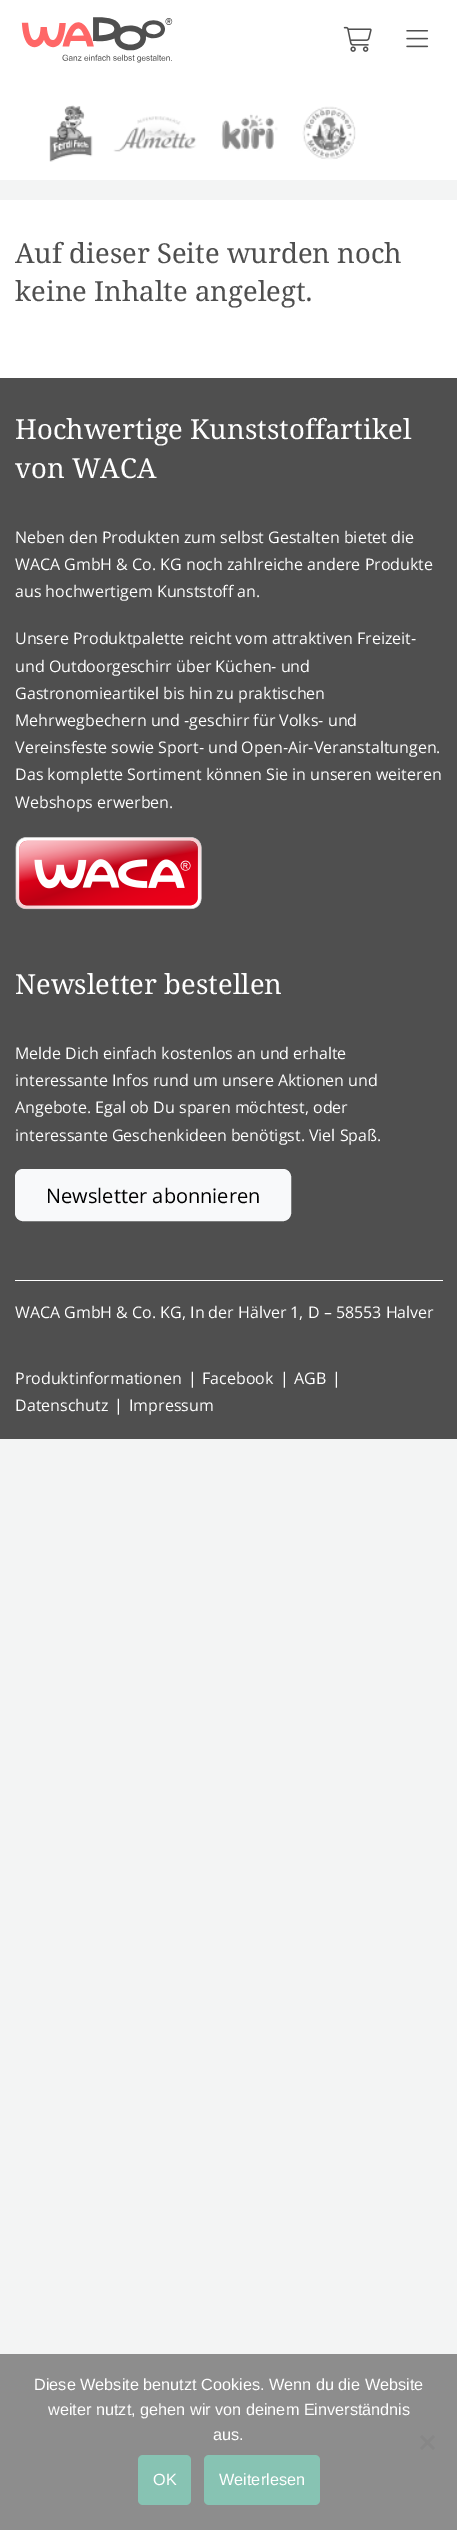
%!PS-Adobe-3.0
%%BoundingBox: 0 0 457 2530
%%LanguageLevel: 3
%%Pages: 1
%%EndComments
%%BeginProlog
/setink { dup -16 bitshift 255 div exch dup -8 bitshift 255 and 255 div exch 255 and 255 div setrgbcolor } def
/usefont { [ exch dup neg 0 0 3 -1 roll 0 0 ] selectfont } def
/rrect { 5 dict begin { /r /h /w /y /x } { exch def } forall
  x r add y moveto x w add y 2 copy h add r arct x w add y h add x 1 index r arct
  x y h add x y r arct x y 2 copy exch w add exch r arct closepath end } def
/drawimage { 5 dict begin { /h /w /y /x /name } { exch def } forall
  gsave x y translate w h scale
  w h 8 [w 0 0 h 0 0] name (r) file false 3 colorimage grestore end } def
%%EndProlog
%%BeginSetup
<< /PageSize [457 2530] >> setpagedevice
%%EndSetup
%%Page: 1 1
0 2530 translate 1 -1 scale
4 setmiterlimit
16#F3F4F4 setink
0 0 457 2530 rectfill
16#FFFFFF setink
0 0 457 180 rectfill
(img1.raw) 21 17 152 46 drawimage
(img2.raw) 343 26 29 26 drawimage
(img3.raw) 406 30 23 18 drawimage
(img4.raw) 49 105 307 57 drawimage
0 200 457 178 rectfill
/DroidSerif-Regular 27.5 usefont
16#4F4F4F setink
15 263 moveto (Auf dieser Seite wurden noch) show
15 301 moveto (keine Inhalte angelegt.) show
0 378 457 1061 rectfill
16#FFFFFF setink
15 439 moveto (Hochwertige Kunststoffartikel) show
15 478 moveto (von WACA) show
/OpenSans-Regular 16 usefont
[
    [(Neben den Produkten zum selbst Gestalten bietet die) 15 543]
    [(WACA GmbH & Co. KG noch zahlreiche andere Produkte) 15 570]
    [(aus hochwertigem Kunststoff an.) 15 597]
    [(Unsere Produktpalette reicht vom attraktiven Freizeit-) 15 644]
    [(und Outdoorgeschirr über Küchen- und) 15 672]
    [(Gastronomieartikel bis hin zu praktischen) 15 699]
    [(Mehrwegbechern und -geschirr für Volks- und) 15 726]
    [(Vereinsfeste sowie Sport- und Open-Air-Veranstaltungen.) 15 753]
    [(Das komplette Sortiment können Sie in unseren weiteren) 15 780]
    [(Webshops erwerben.) 15 808]
] { aload pop moveto show } forall
(img5.raw) 15 837 187 73 drawimage
/DroidSerif-Regular 27.5 usefont
15 994 moveto (Newsletter bestellen) show
/OpenSans-Regular 16 usefont
[
    [(Melde Dich einfach kostenlos an und erhalte) 15 1059]
    [(interessante Infos rund um unsere Aktionen und) 15 1086]
    [(Angebote. Egal ob Du sparen möchtest, oder) 15 1113]
    [(interessante Geschenkideen benötigst. Viel Spaß.) 15 1141]
] { aload pop moveto show } forall
16#F8F9FA setink
15.5 1169.5 275 51 7.5 rrect gsave fill grestore
stroke
/OpenSans-Regular 20 usefont
16#000000 setink
46 1203 moveto (Newsletter abonnieren) show
16#FFFFFF setink
15 1280 428 1 rectfill
/OpenSans-Regular 16 usefont
[
    [(WACA GmbH & Co. KG, In der Hälver 1, D – 58553 Halver) 15 1318]
    [(Produktinformationen) 15 1384]
    [(|) 188 1384]
    [(Facebook) 202 1384]
    [(|) 280 1384]
    [(AGB) 294 1384]
    [(|) 332 1384]
    [(Datenschutz) 15 1411]
    [(|) 114 1411]
    [(Impressum) 129 1411]
] { aload pop moveto show } forall
16#8D8D8D setink
0 2354 457 176 rectfill
/LiberationSans-Regular 16.25 usefont
16#FFFFFF setink
[
    [(Diese Website benutzt Cookies. Wenn du die Website) 34 2390]
    [(weiter nutzt, gehen wir von deinem Einverständnis) 48 2415]
    [(aus.) 213 2440]
] { aload pop moveto show } forall
16#878787 setink
433 2435 moveto 435 2437 lineto 422 2450 lineto 420 2448 lineto closepath fill
420 2437 moveto 422 2435 lineto 435 2448 lineto 433 2450 lineto closepath fill
16#87C3B3 setink
138 2455 53 50 5 rrect fill
16#FFFFFF setink
153 2485 moveto (OK) show
16#87C3B3 setink
204 2455 116 50 5 rrect fill
16#FFFFFF setink
219 2485 moveto (Weiterlesen) show
showpage
%%EOF
